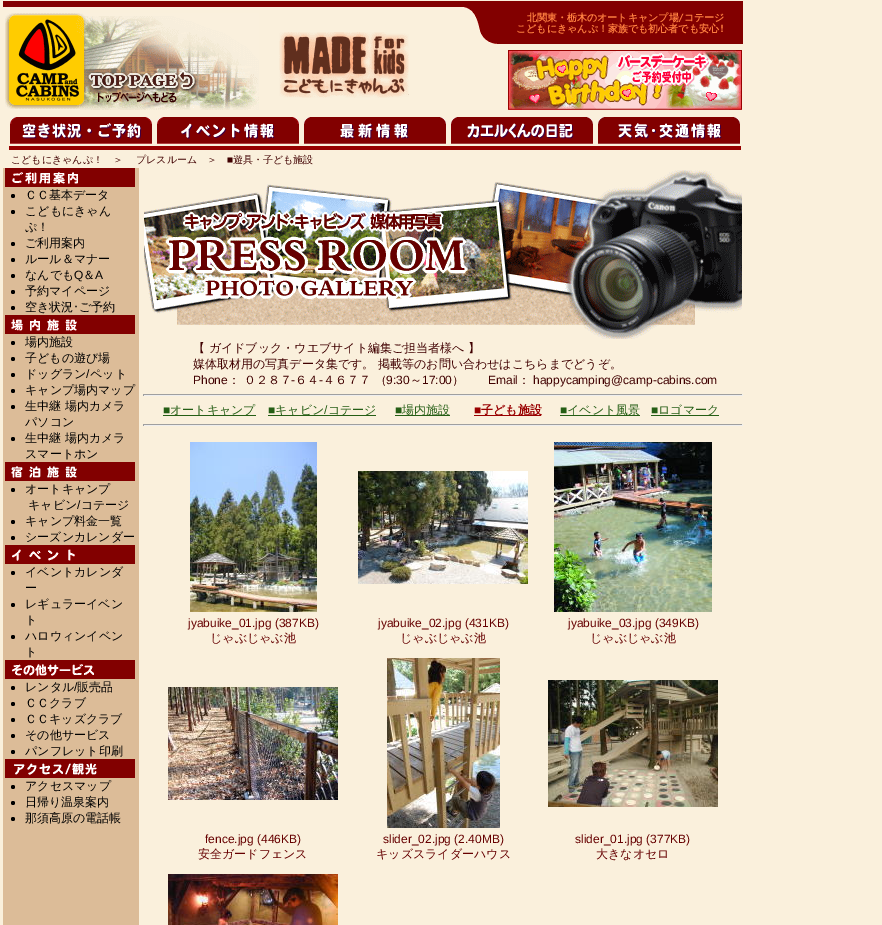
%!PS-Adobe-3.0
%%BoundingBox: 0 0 882 925
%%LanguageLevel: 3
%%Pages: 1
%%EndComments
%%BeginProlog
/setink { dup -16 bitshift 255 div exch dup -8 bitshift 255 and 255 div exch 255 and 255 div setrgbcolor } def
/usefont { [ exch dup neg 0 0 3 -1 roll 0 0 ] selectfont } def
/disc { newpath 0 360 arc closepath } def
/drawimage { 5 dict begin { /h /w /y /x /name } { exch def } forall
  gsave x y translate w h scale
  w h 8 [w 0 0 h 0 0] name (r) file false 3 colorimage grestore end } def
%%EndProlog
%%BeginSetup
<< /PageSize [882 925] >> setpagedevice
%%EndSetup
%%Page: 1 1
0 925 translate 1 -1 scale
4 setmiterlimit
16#FAF0DC setink
0 0 882 925 rectfill
16#820000 setink
3 1 740 6 rectfill
(img1.raw) 5 13 254 97 drawimage
497 7 246 37 rectfill
(img2.raw) 463 7 34 37 drawimage
/WenQuanYiZenHei-Bold 10 usefont
16#FF8040 setink
527 21 moveto (北関東・栃木のオートキャンプ場) show
/DejaVuSansMono-Bold 10 usefont
678 21 moveto (/) show
/WenQuanYiZenHei-Bold 10 usefont
684 21 moveto (コテージ) show
516 32 moveto (こどもにきゃんぷ！家族でも初心者でも安心) show
/DejaVuSansMono-Bold 10 usefont
719 32 moveto (!) show
/WenQuanYiZenHei-Medium 10 usefont
16#400000 setink
[
    [(こどもにきゃんぷ！) 11 163]
    [(＞) 113 163]
    [(プレスルーム) 136 163]
    [(＞) 207 163]
] { aload pop moveto show } forall
/LiberationSans-Regular 10 usefont
227 163 moveto (■) show
/WenQuanYiZenHei-Medium 10 usefont
233 163 moveto (遊具・子ども施設) show
(img3.raw) 279 32 130 66 drawimage
(img4.raw) 508 50 234 60 drawimage
16#960000 setink
9 146 732 4 rectfill
(img5.raw) 10 117 142 27 drawimage
(img6.raw) 157 117 142 27 drawimage
(img7.raw) 304 117 142 27 drawimage
(img8.raw) 451 117 142 27 drawimage
(img9.raw) 598 117 142 27 drawimage
16#DCBC98 setink
3 168 136 757 rectfill
(img10.raw) 5 168 130 19 drawimage
16#000000 setink
13 196 2 disc fill
/WenQuanYiZenHei-Medium 12 usefont
25 199 moveto (ＣＣ基本データ) show
13 212 2 disc fill
25 215 moveto (こどもにきゃん) show
25 231 moveto (ぷ！) show
13 244 2 disc fill
25 247 moveto (ご利用案内) show
13 260 2 disc fill
25 263 moveto (ルール＆マナー) show
13 276 2 disc fill
25 279 moveto (なんでも) show
/LiberationSans-Regular 12 usefont
74 279 moveto (Q) show
/WenQuanYiZenHei-Medium 12 usefont
83 279 moveto (＆) show
/LiberationSans-Regular 12 usefont
95 279 moveto (A) show
13 292 2 disc fill
/WenQuanYiZenHei-Medium 12 usefont
25 295 moveto (予約マイページ) show
13 308 2 disc fill
25 311 moveto (空き状況) show
/IPAGothic-Regular 12 usefont
73 311 moveto (･) show
/WenQuanYiZenHei-Medium 12 usefont
79 311 moveto (ご予約) show
(img11.raw) 5 315 130 19 drawimage
13 343 2 disc fill
25 346 moveto (場内施設) show
13 359 2 disc fill
25 362 moveto (子どもの遊び場) show
25 378 moveto (ドッグラン ペット) show
13 375 2 disc fill
/LiberationSans-Regular 12 usefont
86 378 moveto (/) show
13 391 2 disc fill
/WenQuanYiZenHei-Medium 12 usefont
25 394 moveto (キャンプ場内マップ) show
13 407 2 disc fill
25 410 moveto (生中継 場内カメラ) show
25 426 moveto (パソコン) show
13 439 2 disc fill
25 442 moveto (生中継 場内カメラ) show
25 458 moveto (スマートホン) show
(img12.raw) 5 462 130 19 drawimage
13 490 2 disc fill
25 493 moveto (オートキャンプ) show
28 509 moveto (キャビン コテージ) show
/LiberationSans-Regular 12 usefont
77 509 moveto (/) show
13 522 2 disc fill
/WenQuanYiZenHei-Medium 12 usefont
25 525 moveto (キャンプ料金一覧) show
13 538 2 disc fill
25 541 moveto (シーズンカレンダー) show
(img13.raw) 5 545 130 19 drawimage
13 573 2 disc fill
25 576 moveto (イベントカレンダ) show
25 592 moveto (ー) show
13 605 2 disc fill
25 608 moveto (レギュラーイベン) show
25 624 moveto (ト) show
13 637 2 disc fill
25 640 moveto (ハロウィンイベン) show
25 656 moveto (ト) show
(img14.raw) 5 660 130 19 drawimage
13 688 2 disc fill
25 691 moveto (レンタル) show
/LiberationSans-Regular 12 usefont
74 691 moveto (/) show
/WenQuanYiZenHei-Medium 12 usefont
77 691 moveto (販売品) show
13 704 2 disc fill
25 707 moveto (ＣＣクラブ) show
13 720 2 disc fill
25 723 moveto (ＣＣキッズクラブ) show
13 736 2 disc fill
25 739 moveto (その他サービス) show
13 752 2 disc fill
25 755 moveto (パンフレット印刷) show
(img15.raw) 5 759 130 19 drawimage
13 787 2 disc fill
25 790 moveto (アクセスマップ) show
13 803 2 disc fill
25 806 moveto (日帰り温泉案内) show
13 819 2 disc fill
25 822 moveto (那須高原の電話帳) show
(img16.raw) 144 170 598 169 drawimage
16#400000 setink
193 352 moveto (【 ガイドブック・ウエブサイト編集ご担当者様へ 】) show
193 368 moveto (媒体取材用の写真データ集です。 掲載等のお問い合わせはこちらまでどうぞ。) show
/LiberationSans-Regular 12 usefont
193 384 moveto (Phone) show
/WenQuanYiZenHei-Medium 12 usefont
228 384 moveto (： ０２８７) show
/LiberationSans-Regular 12 usefont
291 384 moveto (-) show
/WenQuanYiZenHei-Medium 12 usefont
295 384 moveto (６４) show
/LiberationSans-Regular 12 usefont
319 384 moveto (-) show
/WenQuanYiZenHei-Medium 12 usefont
323 384 moveto (４６７７ （) show
/LiberationSans-Regular 12 usefont
386 384 moveto (9:30) show
/WenQuanYiZenHei-Medium 12 usefont
410 384 moveto (～) show
/LiberationSans-Regular 12 usefont
422 384 moveto (17:00) show
/WenQuanYiZenHei-Medium 12 usefont
452 384 moveto (）) show
/LiberationSans-Regular 12 usefont
488 384 moveto (Email) show
/WenQuanYiZenHei-Medium 12 usefont
518 384 moveto (：) show
/LiberationSans-Regular 12 usefont
533 384 moveto (happycamping@camp-cabins.com) show
[
    [143 394 600 1 16#9F9F9F]
    [742 394 1 2 16#EEEEEE]
    [143 395 600 1 16#EEEEEE]
    [143 394 1 2 16#9F9F9F]
] { aload pop setink rectfill } forall
16#255E15 setink
163 414 moveto (■) show
163 415 93 1 rectfill
/WenQuanYiZenHei-Medium 12 usefont
170 414 moveto (オートキャンプ) show
268 415 108 1 rectfill
275 414 moveto (キャビン コテージ) show
/LiberationSans-Regular 12 usefont
[
    [(■) 268 414]
    [(/) 324 414]
    [(■) 395 414]
] { aload pop moveto show } forall
395 415 55 1 rectfill
/WenQuanYiZenHei-Medium 12 usefont
402 414 moveto (場内施設) show
/LiberationSans-Bold 12 usefont
16#990000 setink
474 414 moveto (■) show
474 415 67 1 rectfill
/WenQuanYiZenHei-Bold 12 usefont
481 414 moveto (子ども施設) show
/LiberationSans-Regular 12 usefont
16#255E15 setink
560 414 moveto (■) show
560 415 80 1 rectfill
/WenQuanYiZenHei-Medium 12 usefont
567 414 moveto (イベント風景) show
/LiberationSans-Regular 12 usefont
651 414 moveto (■) show
651 415 68 1 rectfill
/WenQuanYiZenHei-Medium 12 usefont
658 414 moveto (ロゴマーク) show
[
    [143 424 600 1 16#9F9F9F]
    [742 424 1 2 16#EEEEEE]
    [143 425 600 1 16#EEEEEE]
    [143 424 1 2 16#9F9F9F]
] { aload pop setink rectfill } forall
(img17.raw) 190 442 127 170 drawimage
(img18.raw) 358 471 170 113 drawimage
(img19.raw) 554 442 158 170 drawimage
/LiberationSans-Regular 12 usefont
16#660000 setink
188 627 moveto (jyabuike_01.jpg \(387KB\)) show
/WenQuanYiZenHei-Medium 12 usefont
210 642 moveto (じゃぶじゃぶ池) show
/LiberationSans-Regular 12 usefont
378 627 moveto (jyabuike_02.jpg \(431KB\)) show
/WenQuanYiZenHei-Medium 12 usefont
400 642 moveto (じゃぶじゃぶ池) show
/LiberationSans-Regular 12 usefont
568 627 moveto (jyabuike_03.jpg \(349KB\)) show
/WenQuanYiZenHei-Medium 12 usefont
590 642 moveto (じゃぶじゃぶ池) show
(img20.raw) 168 687 170 113 drawimage
(img21.raw) 387 658 113 170 drawimage
(img22.raw) 548 680 170 127 drawimage
/LiberationSans-Regular 12 usefont
205 843 moveto (fence.jpg \(446KB\)) show
/WenQuanYiZenHei-Medium 12 usefont
198 858 moveto (安全ガードフェンス) show
/LiberationSans-Regular 12 usefont
383 843 moveto (slider_02.jpg \(2.40MB\)) show
/WenQuanYiZenHei-Medium 12 usefont
376 858 moveto (キッズスライダーハウス) show
/LiberationSans-Regular 12 usefont
575 843 moveto (slider_01.jpg \(377KB\)) show
/WenQuanYiZenHei-Medium 12 usefont
596 858 moveto (大きなオセロ) show
(img23.raw) 168 874 170 51 drawimage
showpage
%%EOF
